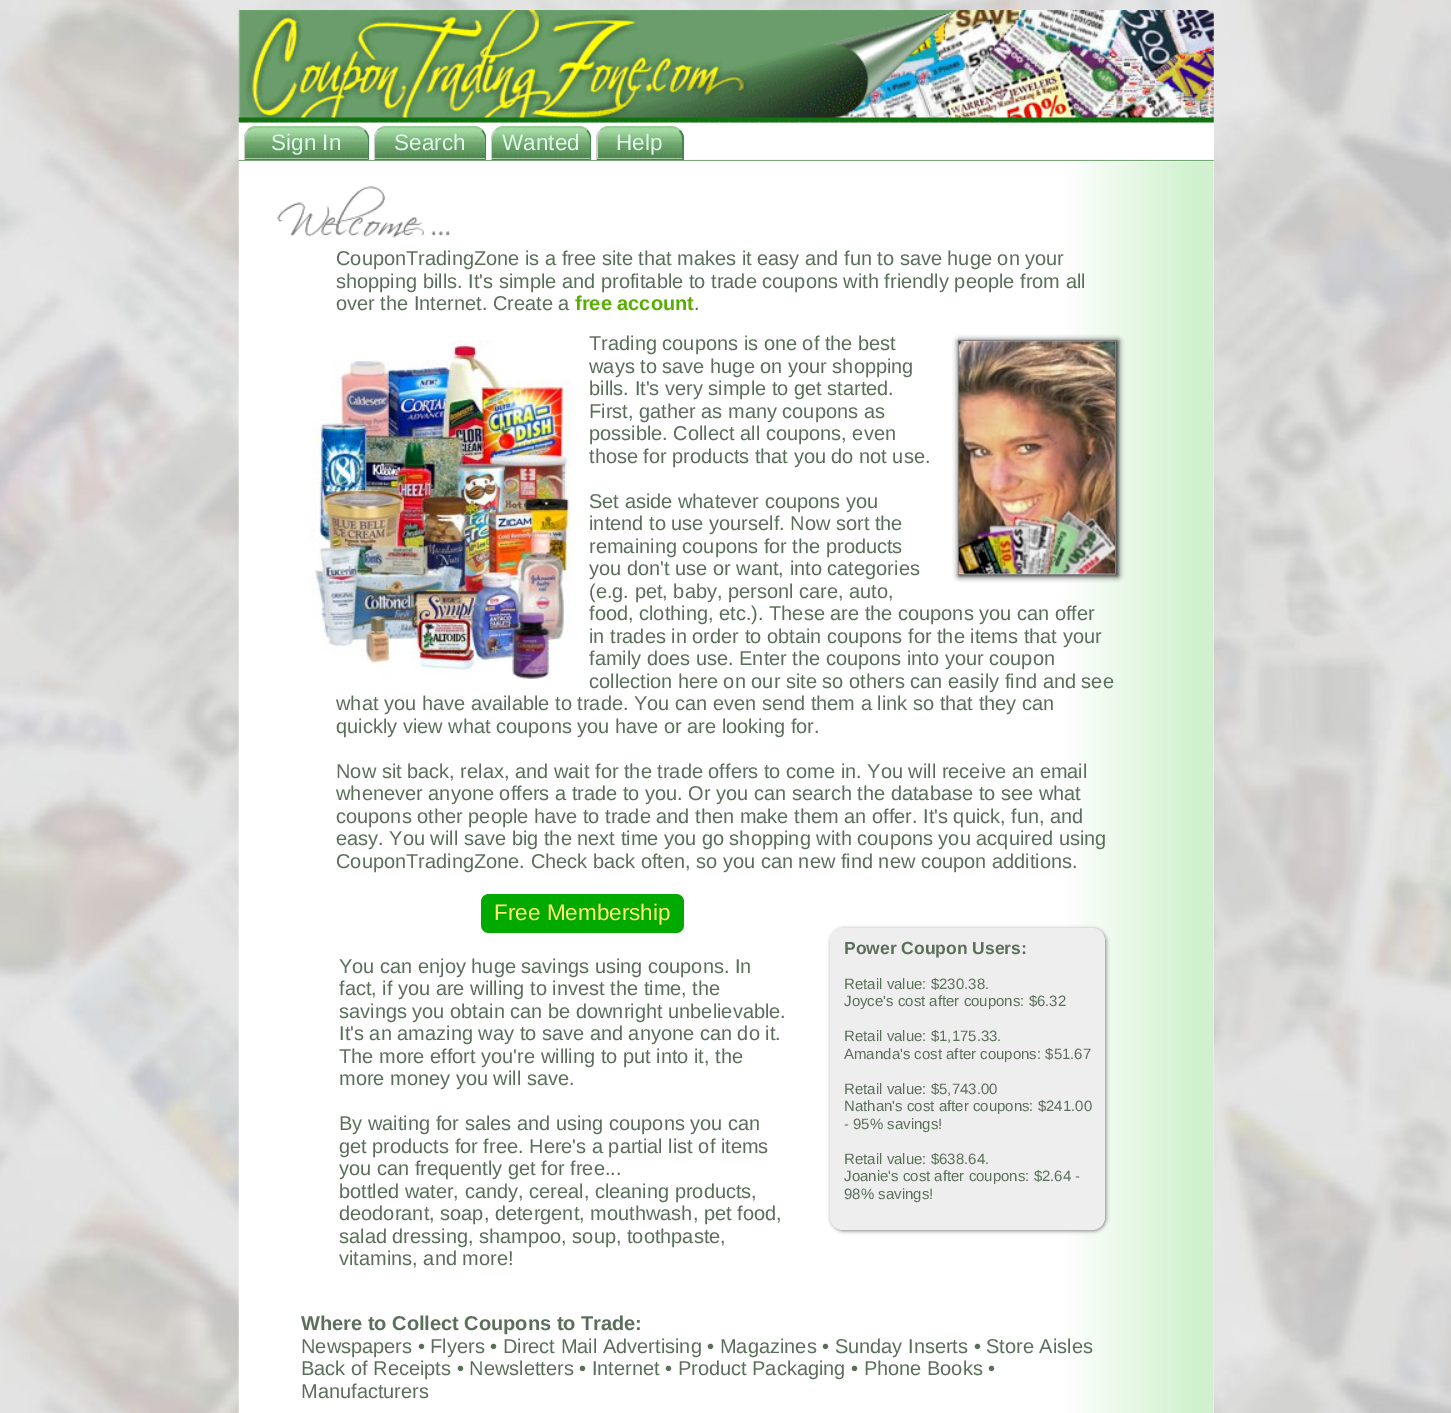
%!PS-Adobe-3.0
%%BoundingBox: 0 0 1451 1413
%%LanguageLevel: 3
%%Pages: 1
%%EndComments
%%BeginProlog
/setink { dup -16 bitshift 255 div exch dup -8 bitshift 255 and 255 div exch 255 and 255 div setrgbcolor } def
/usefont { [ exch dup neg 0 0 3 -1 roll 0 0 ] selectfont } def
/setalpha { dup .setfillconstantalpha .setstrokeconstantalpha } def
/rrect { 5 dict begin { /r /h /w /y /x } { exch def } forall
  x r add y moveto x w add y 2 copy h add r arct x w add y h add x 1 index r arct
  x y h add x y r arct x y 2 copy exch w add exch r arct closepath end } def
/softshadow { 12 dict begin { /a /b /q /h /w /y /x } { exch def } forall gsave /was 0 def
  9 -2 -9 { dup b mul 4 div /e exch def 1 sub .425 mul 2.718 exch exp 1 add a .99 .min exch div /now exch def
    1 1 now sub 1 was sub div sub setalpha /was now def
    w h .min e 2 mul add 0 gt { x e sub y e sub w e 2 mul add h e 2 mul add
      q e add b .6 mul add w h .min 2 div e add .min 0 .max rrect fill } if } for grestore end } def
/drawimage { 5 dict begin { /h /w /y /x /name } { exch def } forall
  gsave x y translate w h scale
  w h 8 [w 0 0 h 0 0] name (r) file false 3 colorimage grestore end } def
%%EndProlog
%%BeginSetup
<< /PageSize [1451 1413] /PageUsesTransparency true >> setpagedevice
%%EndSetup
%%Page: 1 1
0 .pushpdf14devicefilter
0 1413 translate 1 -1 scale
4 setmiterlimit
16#FFFFFF setink
0 0 1451 1413 rectfill
(img1.raw) 0 0 1451 1413 drawimage
(img3.raw) 238 122 976 40 drawimage
(img2.raw) 238 10 976 113 drawimage
(img4.raw) 243 126 126 33 drawimage
16#99CC99 setink
256 128 moveto 253 128 250 129 249 131 curveto 247 130 lineto 249 128 251 127 254 126 curveto 358 126 lineto 361 127 363 128 365 130 curveto 364 131 lineto 362 129 359 128 356 128 curveto closepath fill
16#468751 setink
369 136.5 moveto 369 160 lineto 368 159 lineto 368 139 lineto 368 136 366.5 133 364 131 curveto 365 130 lineto 367 131.5 368 134 369 136.5 curveto closepath fill
369 160 moveto 368 159 lineto 245 159 lineto 244 160 lineto closepath fill
16#CDCDCD setink
244 160 moveto 244 139 lineto 244 135.5 245 132 247.5 130 curveto 248.5 131 lineto 246.5 133 245 136 245 139 curveto 245 159 lineto closepath fill
/LiberationSans-Regular 22.5 usefont
16#E1F7EB setink
271 150 moveto (Sign In) show
(img5.raw) 373 126 114 33 drawimage
16#99CC99 setink
386 128 moveto 383 128 380 129 379 131 curveto 377 130 lineto 379 128 381 127 384 126 curveto 476 126 lineto 479 127 481 128 483 130 curveto 481 131 lineto 480 129 477 128 474 128 curveto closepath fill
16#468751 setink
482.5 130 moveto 485 132 486 135.5 486 139 curveto 486 160 lineto 485 159 lineto 485 139 lineto 485 136 483.5 133 481.5 131 curveto closepath fill
374 160 moveto 486 160 lineto 485 159 lineto 375 159 lineto closepath fill
16#CDCDCD setink
374 160 moveto 374 139 lineto 374 135.5 375 132 377.5 130 curveto 378.5 131 lineto 376.5 133 375 136 375 139 curveto 375 159 lineto closepath fill
16#E1F7EB setink
394 150 moveto (Search) show
(img6.raw) 491 126 101 33 drawimage
16#99CC99 setink
504 128 moveto 501 128 498 129 496 131 curveto 495 130 lineto 497 128 499 127 502 126 curveto 581 126 lineto 584 127 586 128 588 130 curveto 586 131 lineto 585 129 582 128 579 128 curveto closepath fill
16#468751 setink
587.5 130 moveto 590 132 591 135.5 591 139 curveto 591 160 lineto 590 159 lineto 590 139 lineto 590 136 588.5 133 586.5 131 curveto closepath fill
491 160 moveto 591 160 lineto 590 159 lineto 492 159 lineto closepath fill
16#CDCDCD setink
491 160 moveto 491 136.5 lineto 492 134 493 131.5 495 130 curveto 496 131 lineto 493.5 133 492 136 492 139 curveto 492 159 lineto closepath fill
16#E1F7EB setink
502 150 moveto (Wanted) show
(img7.raw) 596 126 88 33 drawimage
16#99CC99 setink
609 128 moveto 606 128 603 129 601 131 curveto 600 130 lineto 602 128 604 127 607 126 curveto 673 126 lineto 676 127 678 128 680 130 curveto 679 131 lineto 677 129 674 128 671 128 curveto closepath fill
16#468751 setink
684 136.5 moveto 684 160 lineto 682 158 lineto 682 139 lineto 682 136 681 133 679 131 curveto 680 130 lineto 682 131.5 683 134 684 136.5 curveto closepath fill
684 160 moveto 682 158 lineto 682 159 lineto 598 159 lineto 598 158 lineto 596 160 lineto closepath fill
16#CDCDCD setink
596 160 moveto 596 136.5 lineto 597 134 598 131.5 600 130 curveto 601 131 lineto 599 133 598 136 598 139 curveto 598 158 lineto closepath fill
16#E1F7EB setink
616 150 moveto (Help) show
16#FFFFFF setink
239 161 975 1252 rectfill
(img8.raw) 238 161 976 1252 drawimage
(img9.raw) 277 186 174 52 drawimage
/LiberationSans-Regular 20 usefont
16#5A6E5A setink
[
    [(CouponTradingZone is a free site that makes it easy and fun to save huge on your) 336 265]
    [(shopping bills. It's simple and profitable to trade coupons with friendly people from all) 336 288]
    [(over the Internet. Create a) 336 310]
] { aload pop moveto show } forall
/LiberationSans-Bold 20 usefont
16#57AE00 setink
575 310 moveto (free account) show
/LiberationSans-Regular 20 usefont
16#5A6E5A setink
694 310 moveto (.) show
(img10.raw) 311 340 261 340 drawimage
589 350 moveto (Trading coupons is one of the best) show
16#000000 setink
959 341 159 235 0 3 1 softshadow
16#808080 setink
958.5 340.5 157 234 rectstroke
(img11.raw) 958 341 157 233 drawimage
16#5A6E5A setink
[
    [(ways to save huge on your shopping) 589 373]
    [(bills. It's very simple to get started.) 589 395]
    [(First, gather as many coupons as) 589 418]
    [(possible. Collect all coupons, even) 589 440]
    [(those for products that you do not use.) 589 463]
    [(Set aside whatever coupons you) 589 508]
    [(intend to use yourself. Now sort the) 589 530]
    [(remaining coupons for the products) 589 553]
    [(you don't use or want, into categories) 589 575]
    [(\(e.g. pet, baby, personl care, auto,) 589 598]
    [(food, clothing, etc.\). These are the coupons you can offer) 589 620]
    [(in trades in order to obtain coupons for the items that your) 589 643]
    [(family does use. Enter the coupons into your coupon) 589 665]
    [(collection here on our site so others can easily find and see) 589 688]
    [(what you have available to trade. You can even send them a link so that they can) 336 710]
    [(quickly view what coupons you have or are looking for.) 336 733]
    [(Now sit back, relax, and wait for the trade offers to come in. You will receive an email) 336 778]
    [(whenever anyone offers a trade to you. Or you can search the database to see what) 336 800]
    [(coupons other people have to trade and then make them an offer. It's quick, fun, and) 336 823]
    [(easy. You will save big the next time you go shopping with coupons you acquired using) 336 845]
    [(CouponTradingZone. Check back often, so you can new find new coupon additions.) 336 868]
] { aload pop moveto show } forall
16#00AA00 setink
481 894 203 39 8 rrect fill
/LiberationSans-Regular 22.5 usefont
16#FFED6C setink
494 920 moveto (Free Membership) show
/LiberationSans-Regular 20 usefont
16#5A6E5A setink
[
    [(You can enjoy huge savings using coupons. In) 339 973]
    [(fact, if you are willing to invest the time, the) 339 995]
    [(savings you obtain can be downright unbelievable.) 339 1018]
    [(It's an amazing way to save and anyone can do it.) 339 1040]
    [(The more effort you're willing to put into it, the) 339 1063]
    [(more money you will save.) 339 1085]
    [(By waiting for sales and using coupons you can) 339 1130]
    [(get products for free. Here's a partial list of items) 339 1153]
    [(you can frequently get for free...) 339 1175]
    [(bottled water, candy, cereal, cleaning products,) 339 1198]
    [(deodorant, soap, detergent, mouthwash, pet food,) 339 1220]
    [(salad dressing, shampoo, soup, toothpaste,) 339 1243]
    [(vitamins, and more!) 339 1265]
] { aload pop moveto show } forall
16#808080 setink
831 929 275 302 13 2 1 softshadow
16#EEEEEE setink
830 928 275 302 13 rrect fill
/LiberationSans-Bold 17.5 usefont
16#5A6E5A setink
844 954 moveto (Power Coupon Users:) show
/LiberationSans-Regular 15 usefont
[
    [(Retail value: $230.38.) 844 989]
    [(Joyce's cost after coupons: $6.32) 844 1006]
    [(Retail value: $1,175.33.) 844 1041]
    [(Amanda's cost after coupons: $51.67) 844 1059]
    [(Retail value: $5,743.00) 844 1094]
    [(Nathan's cost after coupons: $241.00) 844 1111]
    [(- 95% savings!) 844 1129]
    [(Retail value: $638.64.) 844 1164]
    [(Joanie's cost after coupons: $2.64 -) 844 1181]
    [(98% savings!) 844 1199]
] { aload pop moveto show } forall
/LiberationSans-Bold 20 usefont
301 1330 moveto (Where to Collect Coupons to Trade:) show
/LiberationSans-Regular 20 usefont
[
    [(Newspapers • Flyers • Direct Mail Advertising • Magazines • Sunday Inserts • Store Aisles) 301 1353]
    [(Back of Receipts • Newsletters • Internet • Product Packaging • Phone Books •) 301 1375]
    [(Manufacturers) 301 1398]
] { aload pop moveto show } forall
.poppdf14devicefilter showpage
%%EOF
